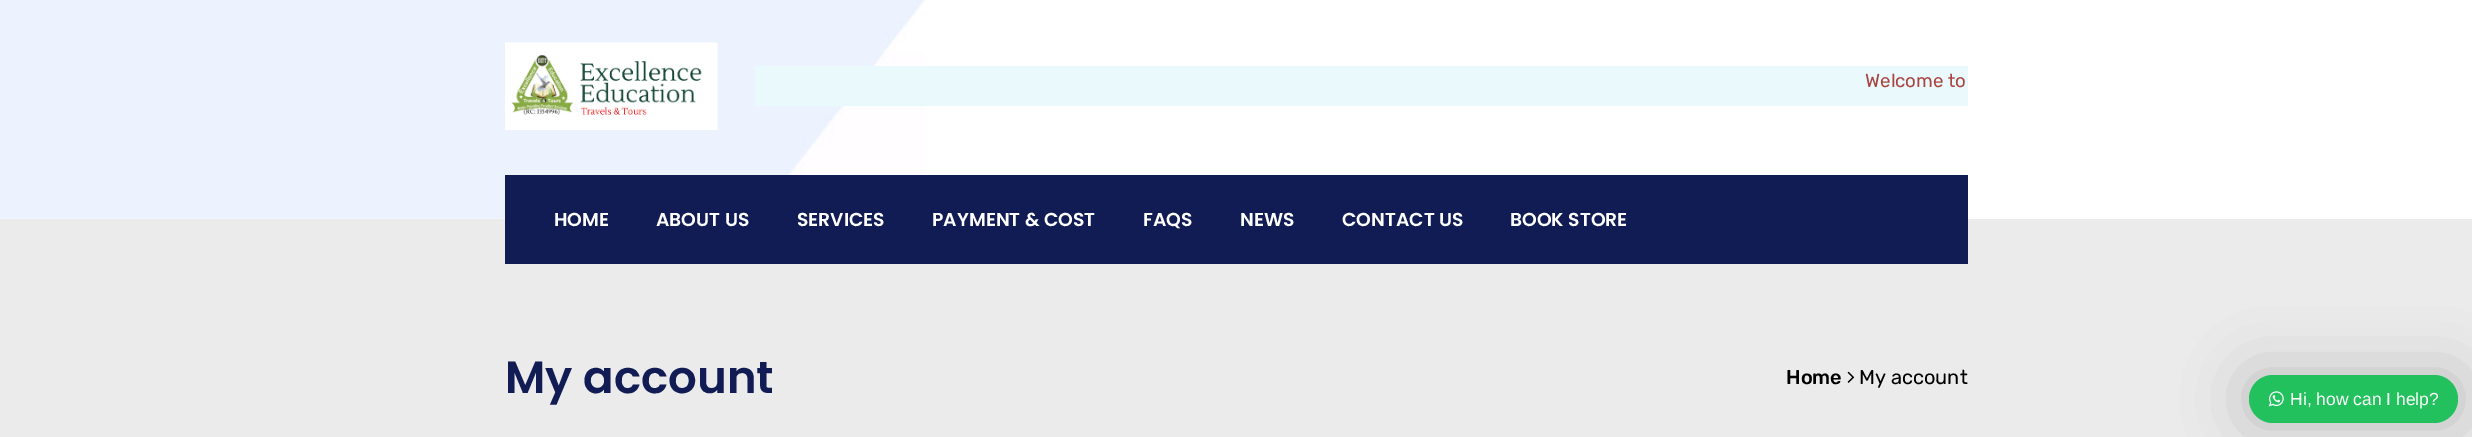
%!PS-Adobe-3.0
%%BoundingBox: 0 0 2472 437
%%LanguageLevel: 3
%%Pages: 1
%%EndComments
%%BeginProlog
/setink { dup -16 bitshift 255 div exch dup -8 bitshift 255 and 255 div exch 255 and 255 div setrgbcolor } def
/usefont { [ exch dup neg 0 0 3 -1 roll 0 0 ] selectfont } def
/setalpha { dup .setfillconstantalpha .setstrokeconstantalpha } def
/rrect { 5 dict begin { /r /h /w /y /x } { exch def } forall
  x r add y moveto x w add y 2 copy h add r arct x w add y h add x 1 index r arct
  x y h add x y r arct x y 2 copy exch w add exch r arct closepath end } def
/softshadow { 12 dict begin { /a /b /q /h /w /y /x } { exch def } forall gsave /was 0 def
  9 -2 -9 { dup b mul 4 div /e exch def 1 sub .425 mul 2.718 exch exp 1 add a .99 .min exch div /now exch def
    1 1 now sub 1 was sub div sub setalpha /was now def
    w h .min e 2 mul add 0 gt { x e sub y e sub w e 2 mul add h e 2 mul add
      q e add b .6 mul add w h .min 2 div e add .min 0 .max rrect fill } if } for grestore end } def
/drawimage { 5 dict begin { /h /w /y /x /name } { exch def } forall
  gsave x y translate w h scale
  w h 8 [w 0 0 h 0 0] name (r) file false 3 colorimage grestore end } def
%%EndProlog
%%BeginSetup
<< /PageSize [2472 437] /PageUsesTransparency true >> setpagedevice
%%EndSetup
%%Page: 1 1
0 .pushpdf14devicefilter
0 437 translate 1 -1 scale
4 setmiterlimit
16#FFFFFF setink
0 0 2472 437 rectfill
(img1.raw) 0 0 925 219 drawimage
(img2.raw) 505 42 213 88 drawimage
16#EAFAFC setink
755 66 1213 40 rectfill
/Rubik-Light 18.75 usefont
16#A94442 setink
1865 87 moveto (Welcome to) show
16#EBEBEB setink
0 219 2472 218 rectfill
16#111C55 setink
505 175 1463 89 rectfill
/Poppins-SemiBold 18.75 usefont
16#FFFFFF setink
[
    [(HOME) 554 226]
    [(ABOUT US) 656 226]
    [(SERVICES) 797 226]
    [(PAYMENT & COST) 932 226]
    [(FAQS) 1143 226]
    [(NEWS) 1240 226]
    [(CONTACT US) 1342 226]
    [(BOOK STORE) 1510 226]
] { aload pop moveto show } forall
/Poppins-SemiBold 45 usefont
16#111C55 setink
505 393 moveto (My account) show
/Rubik-Medium 20 usefont
16#000000 setink
1786 384 moveto (Home) show
(img3.raw) 1847 371 8 12 drawimage
/Rubik-Light 20 usefont
1859 384 moveto (My account) show
2249 375 209 48 24 31 0.2 softshadow
16#22C15E setink
2249 375 209 48 24 rrect fill
(img4.raw) 2268 391 16 16 drawimage
/LiberationSans-Regular 17.5 usefont
16#FFFFFF setink
2290 405 moveto (Hi, how can I help?) show
.poppdf14devicefilter showpage
%%EOF
